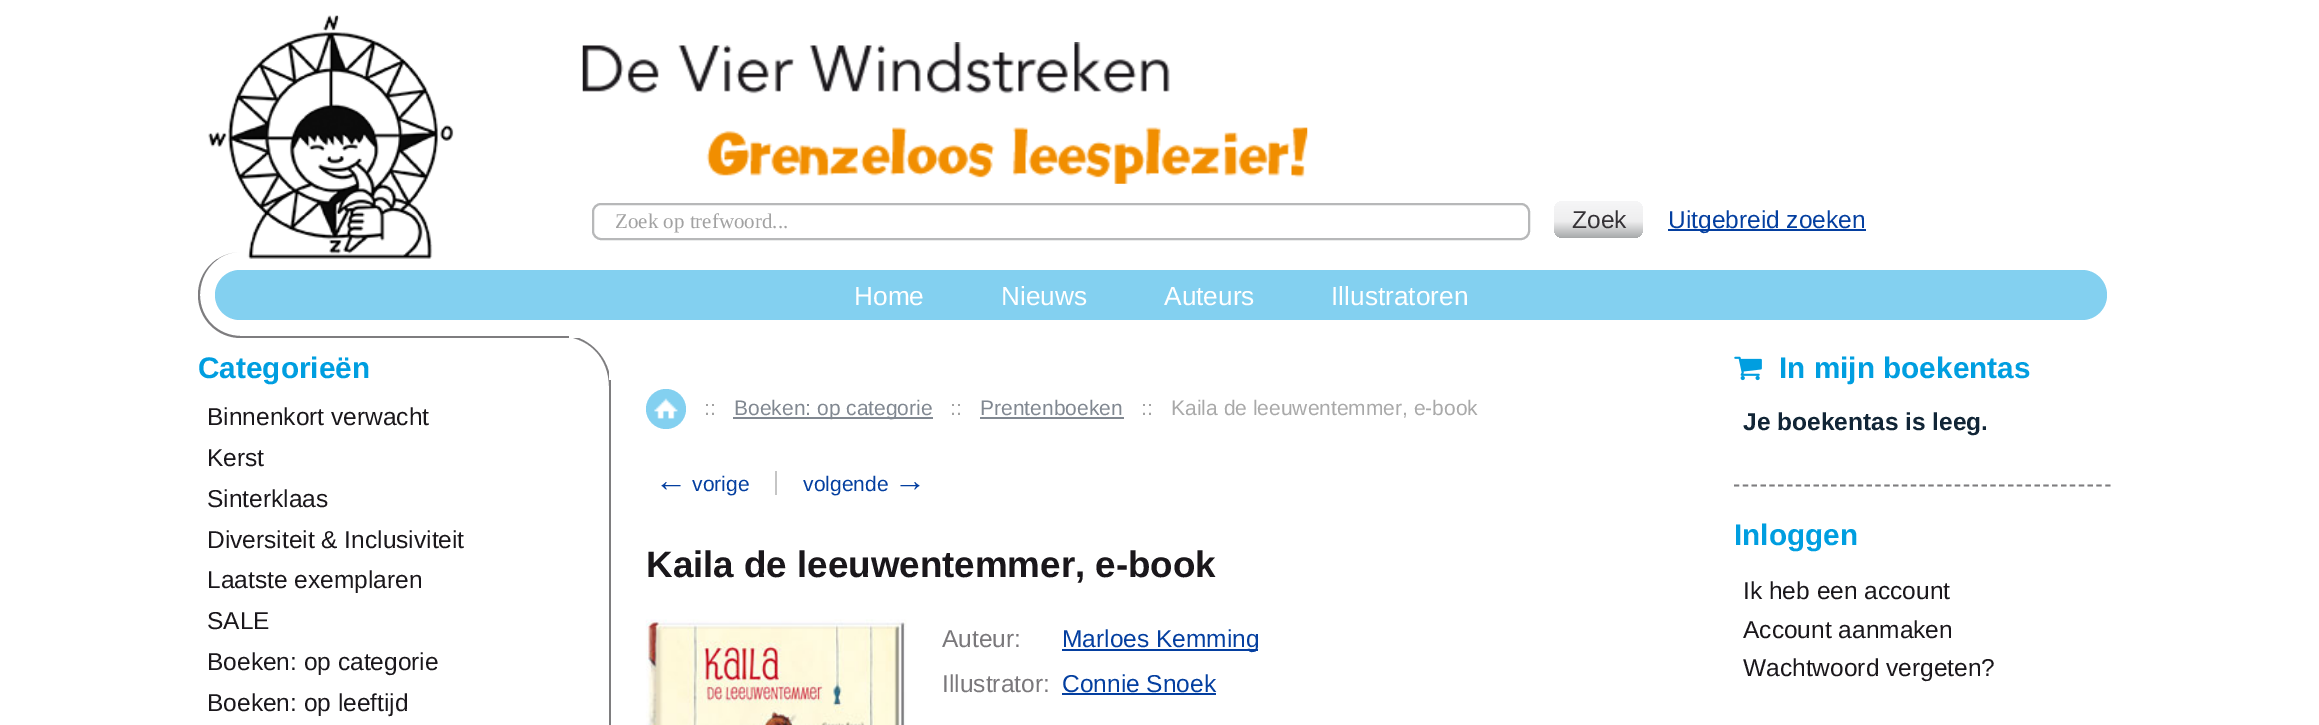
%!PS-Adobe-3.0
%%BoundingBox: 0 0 2319 725
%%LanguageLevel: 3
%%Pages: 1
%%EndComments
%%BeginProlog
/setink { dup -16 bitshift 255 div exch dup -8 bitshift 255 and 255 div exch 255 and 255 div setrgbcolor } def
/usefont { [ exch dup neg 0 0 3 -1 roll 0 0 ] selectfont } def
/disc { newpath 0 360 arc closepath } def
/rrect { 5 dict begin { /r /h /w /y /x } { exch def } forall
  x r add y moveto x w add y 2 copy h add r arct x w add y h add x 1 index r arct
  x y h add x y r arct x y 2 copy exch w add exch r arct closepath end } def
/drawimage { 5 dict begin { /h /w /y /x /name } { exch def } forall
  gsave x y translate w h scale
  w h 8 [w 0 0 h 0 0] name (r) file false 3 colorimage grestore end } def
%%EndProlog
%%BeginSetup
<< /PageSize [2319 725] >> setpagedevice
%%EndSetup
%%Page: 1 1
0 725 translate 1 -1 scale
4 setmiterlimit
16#FFFFFF setink
0 0 2319 725 rectfill
16#7E7D7F setink
609 336 moveto 1712 336 lineto 1712 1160 lineto 660 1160 lineto 632 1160 609 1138 609 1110 curveto closepath 611 336 moveto 1712 336 lineto 1712 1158 lineto 660 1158 lineto 633 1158 611 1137 611 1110 curveto closepath eofill
gsave
198 336 1925 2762 rectclip
558 334 moveto 588 334 611 357 611 387 curveto 558 387 lineto closepath 558 336 moveto 588 336 609 357 609 387 curveto 558 387 lineto closepath eofill
grestore
16#FFFFFF setink
609 336 2 44 rectfill
16#7E7D7F setink
241 252 moveto 2123 252 lineto 2123 338 lineto 241 338 lineto 217 338 198 319 198 295 curveto 198 271 217 252 241 252 curveto closepath 241 252 moveto 2123 252 lineto 2123 336 lineto 241 336 lineto 218 336 200 318 200 295 curveto 200 271 218 252 241 252 curveto closepath eofill
(img1.raw) 208 15 246 244 drawimage
(img2.raw) 582 42 726 142 drawimage
16#B7B8B9 setink
2 setlinewidth
593 204 936 35 8 rrect stroke
/LiberationSerif-Regular 21 usefont
16#A2A2A2 setink
615 228 moveto (Zoek op trefwoord...) show
gsave 1554 201 89 37 9 rrect clip newpath
<< /ShadingType 2 /ColorSpace /DeviceRGB /Coords [1599 201 1599 238] /Extend [true true] /Function << /FunctionType 3 /Domain [0 1] /Functions [<< /FunctionType 2 /Domain [0 1] /C0 [0.965 0.965 0.969] /C1 [0.933 0.933 0.937] /N 1 >> << /FunctionType 2 /Domain [0 1] /C0 [0.933 0.933 0.937] /C1 [0.655 0.663 0.667] /N 1 >>] /Bounds [0.55] /Encode [0 1 0 1] >> >> shfill grestore
/LiberationSans-Regular 24.5 usefont
16#353236 setink
1572 228 moveto (Zoek) show
16#043FA0 setink
1668 229 198 2 rectfill
1668 228 moveto (Uitgebreid zoeken) show
16#83D0F0 setink
215 270 1892 50 25 rrect fill
/LiberationSans-Regular 26.25 usefont
16#FFFFFF setink
[
    [(Home) 854 305]
    [(Nieuws) 1001 305]
    [(Auteurs) 1164 305]
    [(Illustratoren) 1331 305]
] { aload pop moveto show } forall
569 336 1554 2 rectfill
/LiberationSans-Bold 29.75 usefont
16#009EE0 setink
198 378 moveto (Categorieën) show
/LiberationSans-Regular 24.5 usefont
16#1A171B setink
[
    [(Binnenkort verwacht) 207 425]
    [(Kerst) 207 466]
    [(Sinterklaas) 207 507]
    [(Diversiteit & Inclusiviteit) 207 548]
    [(Laatste exemplaren) 207 588]
    [(SALE) 207 629]
    [(Boeken: op categorie) 207 670]
    [(Boeken: op leeftijd) 207 711]
] { aload pop moveto show } forall
16#83D0F0 setink
666 409 20 disc fill
(img3.raw) 654 398 24 21 drawimage
/LiberationSans-Regular 21 usefont
16#A2A2A2 setink
704 415 moveto (::) show
16#818891 setink
733 417 200 2 rectfill
734 415 moveto (Boeken: op categorie) show
16#A2A2A2 setink
950 415 moveto (::) show
16#818891 setink
980 415 moveto (Prentenboeken) show
980 417 144 2 rectfill
16#A2A2A2 setink
1141 415 moveto (::) show
16#A9A9A9 setink
1171 415 moveto (Kaila de leeuwentemmer, e-book) show
/LiberationSans-Regular 32 usefont
16#043FA0 setink
655 491 moveto (←) show
/LiberationSans-Regular 21 usefont
692 491 moveto (vorige) show
16#C5C5C5 setink
775 471 2 24 rectfill
16#043FA0 setink
803 491 moveto (volgende) show
/LiberationSans-Regular 32 usefont
894 491 moveto (→) show
/LiberationSans-Bold 36.75 usefont
16#1A171B setink
646 577 moveto (Kaila de leeuwentemmer, e-book) show
(img4.raw) 645 619 262 106 drawimage
/LiberationSans-Regular 24.5 usefont
16#7A787B setink
942 647 moveto (Auteur:) show
16#043FA0 setink
1062 649 196 2 rectfill
1062 647 moveto (Marloes Kemming) show
16#7A787B setink
942 692 moveto (Illustrator:) show
16#043FA0 setink
1062 692 moveto (Connie Snoek) show
1062 693 154 2 rectfill
(img5.raw) 1734 356 28 25 drawimage
/LiberationSans-Bold 29.75 usefont
16#009EE0 setink
1779 378 moveto (In mijn boekentas) show
16#7E7D7F setink
1.8 setlinewidth
[5.25 3.59] 0 setdash
1734 485.5 moveto 2110.5 485.5 lineto stroke
/LiberationSans-Bold 24.5 usefont
16#112536 setink
1743 430 moveto (Je boekentas is leeg.) show
/LiberationSans-Bold 29.75 usefont
16#009EE0 setink
1734 545 moveto (Inloggen) show
/LiberationSans-Regular 24.5 usefont
16#1A171B setink
[
    [(Ik heb een account) 1743 599]
    [(Account aanmaken) 1743 638]
    [(Wachtwoord vergeten?) 1743 676]
] { aload pop moveto show } forall
showpage
%%EOF
